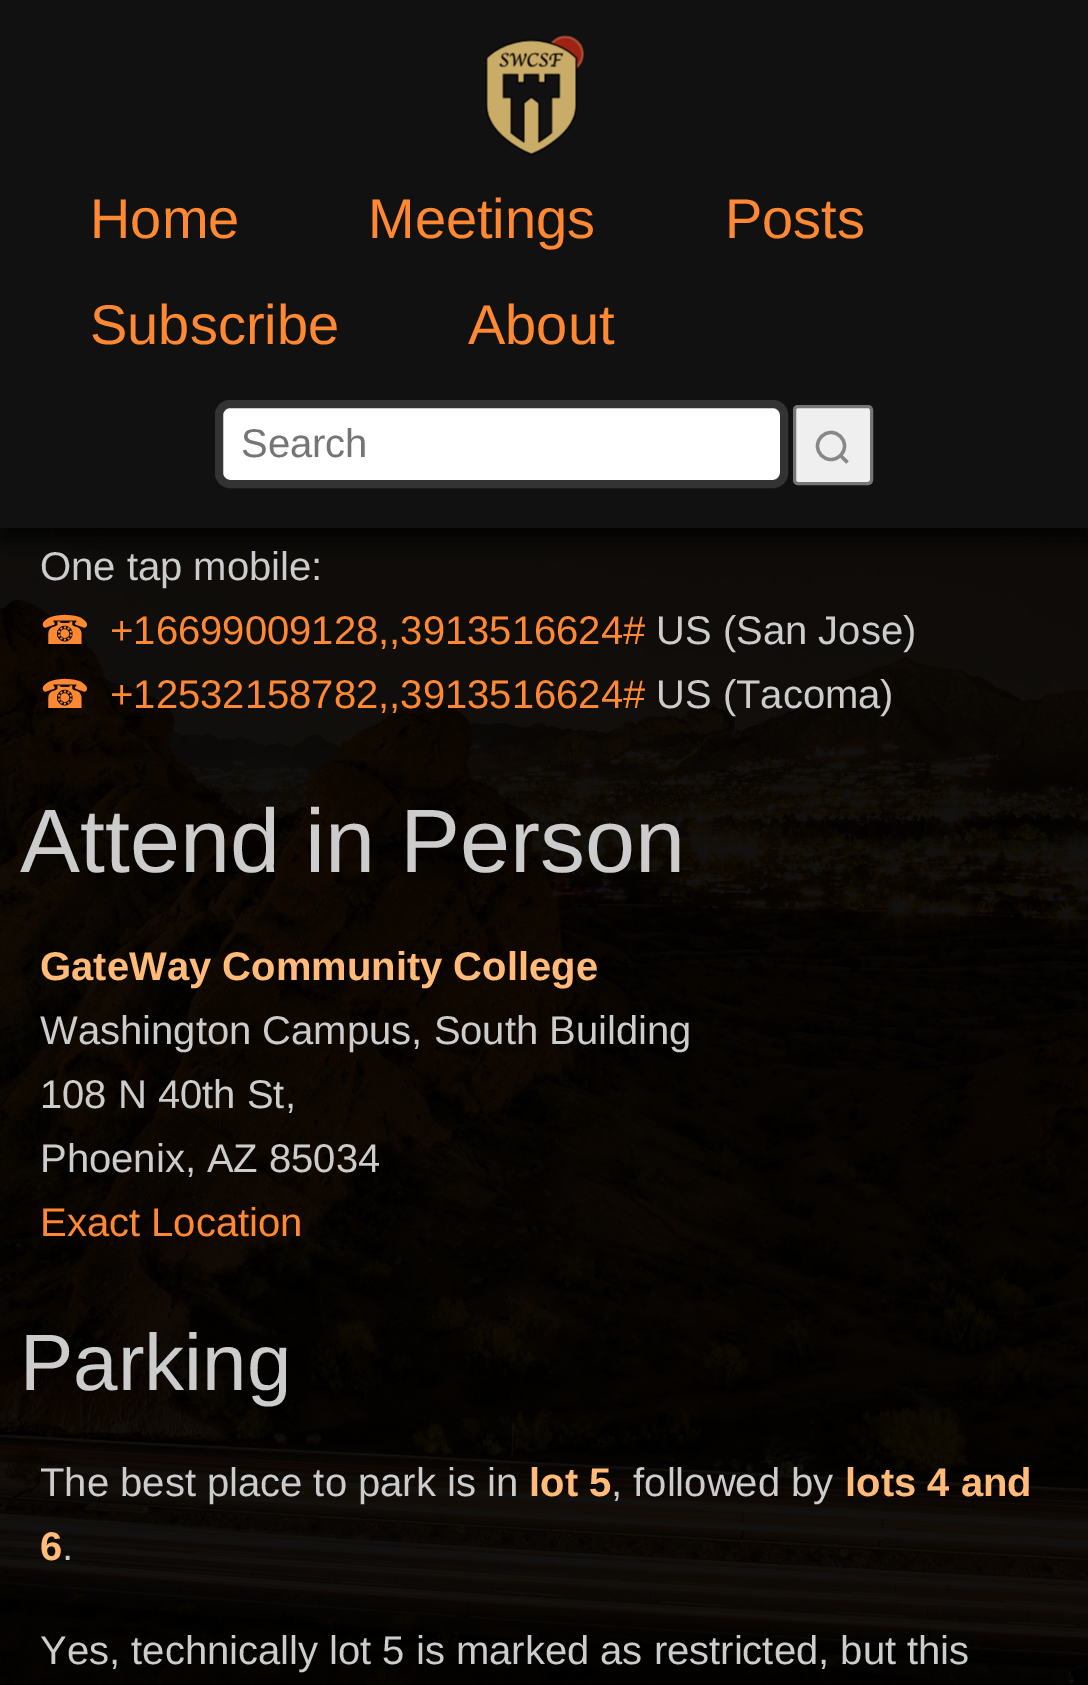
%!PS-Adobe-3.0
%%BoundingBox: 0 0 1088 1685
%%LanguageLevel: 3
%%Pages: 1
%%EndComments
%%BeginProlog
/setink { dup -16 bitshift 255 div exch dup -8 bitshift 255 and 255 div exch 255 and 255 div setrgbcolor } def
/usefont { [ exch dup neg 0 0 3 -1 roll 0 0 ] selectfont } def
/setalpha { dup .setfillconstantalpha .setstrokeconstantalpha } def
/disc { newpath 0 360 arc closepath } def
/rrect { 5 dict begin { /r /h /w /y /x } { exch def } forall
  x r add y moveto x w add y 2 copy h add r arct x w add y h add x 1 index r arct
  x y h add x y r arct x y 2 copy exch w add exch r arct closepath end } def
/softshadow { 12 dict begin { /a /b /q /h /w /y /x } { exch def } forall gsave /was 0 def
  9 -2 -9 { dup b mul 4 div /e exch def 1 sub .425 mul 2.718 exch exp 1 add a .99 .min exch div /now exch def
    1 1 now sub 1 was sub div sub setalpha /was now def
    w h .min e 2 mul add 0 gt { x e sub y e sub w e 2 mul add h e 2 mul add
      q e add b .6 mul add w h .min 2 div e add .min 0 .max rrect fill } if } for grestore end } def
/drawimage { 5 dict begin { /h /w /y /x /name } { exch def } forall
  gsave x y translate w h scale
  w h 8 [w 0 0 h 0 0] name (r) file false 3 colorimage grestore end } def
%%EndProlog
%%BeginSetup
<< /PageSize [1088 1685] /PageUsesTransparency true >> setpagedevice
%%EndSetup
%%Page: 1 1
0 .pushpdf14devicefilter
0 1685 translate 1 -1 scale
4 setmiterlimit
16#FFFFFF setink
0 0 1088 1685 rectfill
(img1.raw) 0 528 1088 1157 drawimage
16#111111 setink
0 0 1088 528 rectfill
gsave
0 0 moveto 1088 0 lineto 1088 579 lineto 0 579 lineto closepath 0 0 moveto 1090 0 lineto 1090 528 lineto 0 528 lineto closepath eoclip newpath
16#000000 setink
0 13 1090 527 0 12.5 0.87 softshadow
grestore
(img2.raw) 485 35 99 121 drawimage
/LiberationSans-Regular 56 usefont
16#FF8833 setink
[
    [(Home) 90 238]
    [(Meetings) 368 238]
    [(Posts) 725 238]
    [(Subscribe) 90 344]
    [(About) 468 344]
] { aload pop moveto show } forall
16#FFFFFF setink
219 404 565 80 11 rrect gsave fill grestore
16#333333 setink
8 setlinewidth
stroke
/LiberationSans-Regular 40 usefont
16#757575 setink
241 457 moveto (Search) show
16#EFEFEF setink
794.5 406.5 77 77 3.5 rrect gsave fill grestore
16#767676 setink
3 setlinewidth
stroke
16#888888 setink
3.3 setlinewidth
831 446 13.5 disc stroke
847.5 462.5 moveto 840.5 455.5 lineto stroke
16#CCCCCC setink
40 580 moveto (One tap mobile:) show
/DejaVuSans-Regular 40 usefont
16#FF8833 setink
40 644 moveto (☎) show
/LiberationSans-Regular 40 usefont
110 644 moveto (+16699009128,,3913516624#) show
16#CCCCCC setink
656 644 moveto (US \(San Jose\)) show
/DejaVuSans-Regular 40 usefont
16#FF8833 setink
40 708 moveto (☎) show
/LiberationSans-Regular 40 usefont
110 708 moveto (+12532158782,,3913516624#) show
16#CCCCCC setink
656 708 moveto (US \(Tacoma\)) show
/LiberationSans-Regular 90 usefont
20 872 moveto (Attend in Person) show
/LiberationSans-Bold 40 usefont
16#FFBB77 setink
40 980 moveto (GateWay Community College) show
/LiberationSans-Regular 40 usefont
16#CCCCCC setink
[
    [(Washington Campus, South Building) 40 1044]
    [(108 N 40th St,) 40 1108]
    [(Phoenix, AZ 85034) 40 1172]
] { aload pop moveto show } forall
16#FF8833 setink
40 1236 moveto (Exact Location) show
/LiberationSans-Regular 80 usefont
16#CCCCCC setink
20 1390 moveto (Parking) show
/LiberationSans-Regular 40 usefont
40 1496 moveto (The best place to park is in) show
/LiberationSans-Bold 40 usefont
16#FFBB77 setink
529 1496 moveto (lot 5) show
/LiberationSans-Regular 40 usefont
16#CCCCCC setink
611 1496 moveto (, followed by) show
/LiberationSans-Bold 40 usefont
16#FFBB77 setink
845 1496 moveto (lots 4 and) show
40 1560 moveto (6) show
/LiberationSans-Regular 40 usefont
16#CCCCCC setink
62 1560 moveto (.) show
40 1664 moveto (Yes, technically lot 5 is marked as restricted, but this) show
.poppdf14devicefilter showpage
%%EOF
